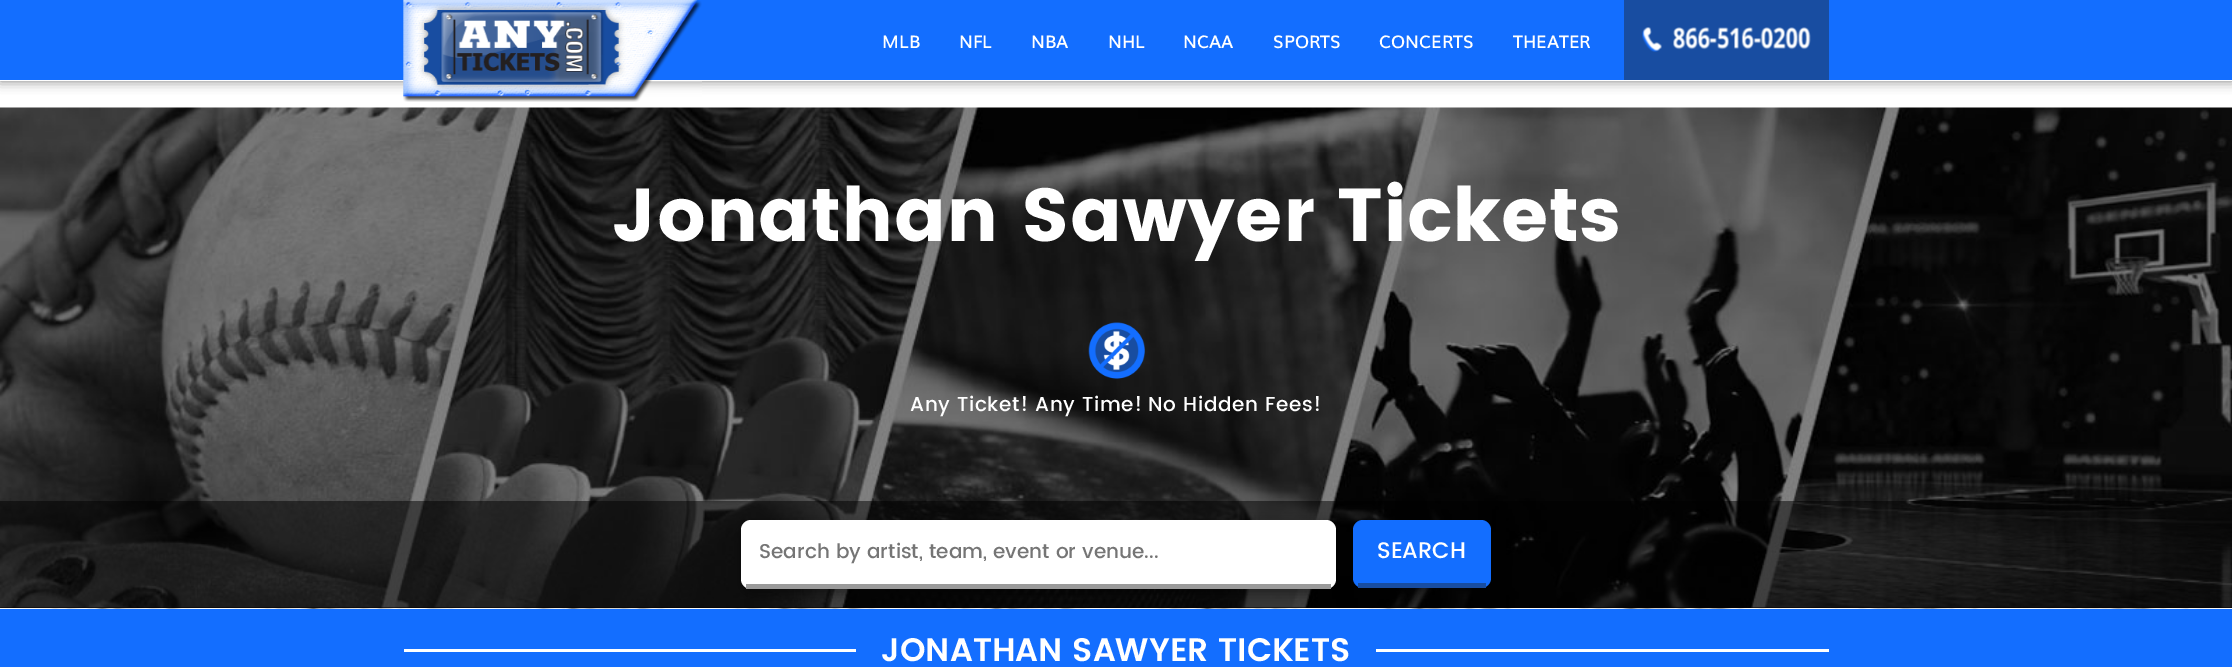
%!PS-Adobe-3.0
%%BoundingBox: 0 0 2232 667
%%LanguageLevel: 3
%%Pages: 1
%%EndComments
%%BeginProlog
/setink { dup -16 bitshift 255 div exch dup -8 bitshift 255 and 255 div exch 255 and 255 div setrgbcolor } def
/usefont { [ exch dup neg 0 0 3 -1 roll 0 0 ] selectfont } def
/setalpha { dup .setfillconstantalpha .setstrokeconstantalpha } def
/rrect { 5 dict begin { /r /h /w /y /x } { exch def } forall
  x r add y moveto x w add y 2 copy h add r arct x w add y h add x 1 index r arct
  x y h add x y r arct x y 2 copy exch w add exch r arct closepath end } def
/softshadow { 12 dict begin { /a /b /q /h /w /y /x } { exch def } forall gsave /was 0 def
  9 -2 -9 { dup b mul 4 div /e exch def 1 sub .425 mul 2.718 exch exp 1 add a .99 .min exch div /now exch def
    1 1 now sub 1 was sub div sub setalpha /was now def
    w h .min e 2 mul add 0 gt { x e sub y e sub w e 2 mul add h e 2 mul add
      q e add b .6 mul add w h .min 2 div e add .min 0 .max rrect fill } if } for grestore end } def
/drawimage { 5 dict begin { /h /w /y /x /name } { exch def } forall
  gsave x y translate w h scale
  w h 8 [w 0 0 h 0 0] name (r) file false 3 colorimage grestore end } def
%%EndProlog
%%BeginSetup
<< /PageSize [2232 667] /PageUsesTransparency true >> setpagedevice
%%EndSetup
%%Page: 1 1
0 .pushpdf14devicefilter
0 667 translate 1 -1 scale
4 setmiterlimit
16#FFFFFF setink
0 0 2232 667 rectfill
16#000000 setink
0 0 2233 81 0 6 0.5 softshadow
16#136EFF setink
0 0 2232 80 rectfill
16#FFFFFF setink
0 80 2232 1 rectfill
(img1.raw) 403 0 299 102 drawimage
/Muli-SemiBold 17.5 usefont
[
    [(MLB) 882 48]
    [(NFL) 959 48]
    [(NBA) 1031 48]
    [(NHL) 1108 48]
    [(NCAA) 1183 48]
    [(SPORTS) 1273 48]
    [(CONCERTS) 1379 48]
    [(THEATER) 1513 48]
] { aload pop moveto show } forall
16#184DA1 setink
1624 0 205 80 rectfill
(img2.raw) 1642 27 20 25 drawimage
(img3.raw) 1673 27 138 23 drawimage
16#000000 setink
0 607 2232 1 rectfill
(img4.raw) 0 107 2232 501 drawimage
/Poppins-Bold 75 usefont
16#FFFFFF setink
612 241 moveto (Jonathan Sawyer Tickets) show
(img5.raw) 1088 322 57 57 drawimage
/Poppins-Medium 20 usefont
910 411 moveto 0.6 0 (Any Ticket!) ashow
1035 411 moveto 0.6 0 (Any Time!) ashow
1148 411 moveto 0.6 0 (No Hidden Fees!) ashow
0.5 setalpha
16#000000 setink
0 501 2232 107 rectfill
1 setalpha
(img6.raw) 0 608 2232 1 drawimage
16#136EFF setink
0 609 2232 58 rectfill
16#000000 setink
741 525 595 69 10 6 0.4 softshadow
16#FFFFFF setink
741 520 595 69 10 rrect fill
16#9A9A9A setink
746 584 585 5 rectfill
16#757575 setink
759 558 moveto (Search by artist, team, event or venue...) show
16#000000 setink
1353 525 138 68 10 6 0.4 softshadow
16#136EFF setink
1353 520 138 68 10 rrect fill
16#184DA1 setink
1358 583 128 5 rectfill
/Poppins-Medium 22.5 usefont
16#FFFFFF setink
1377 558 moveto (SEARCH) show
404 649 1425 3 rectfill
16#136EFF setink
856 649 520 3 rectfill
/Poppins-SemiBold 32.5 usefont
16#FFFFFF setink
881 661 moveto (JONATHAN SAWYER TICKETS) show
.poppdf14devicefilter showpage
%%EOF
